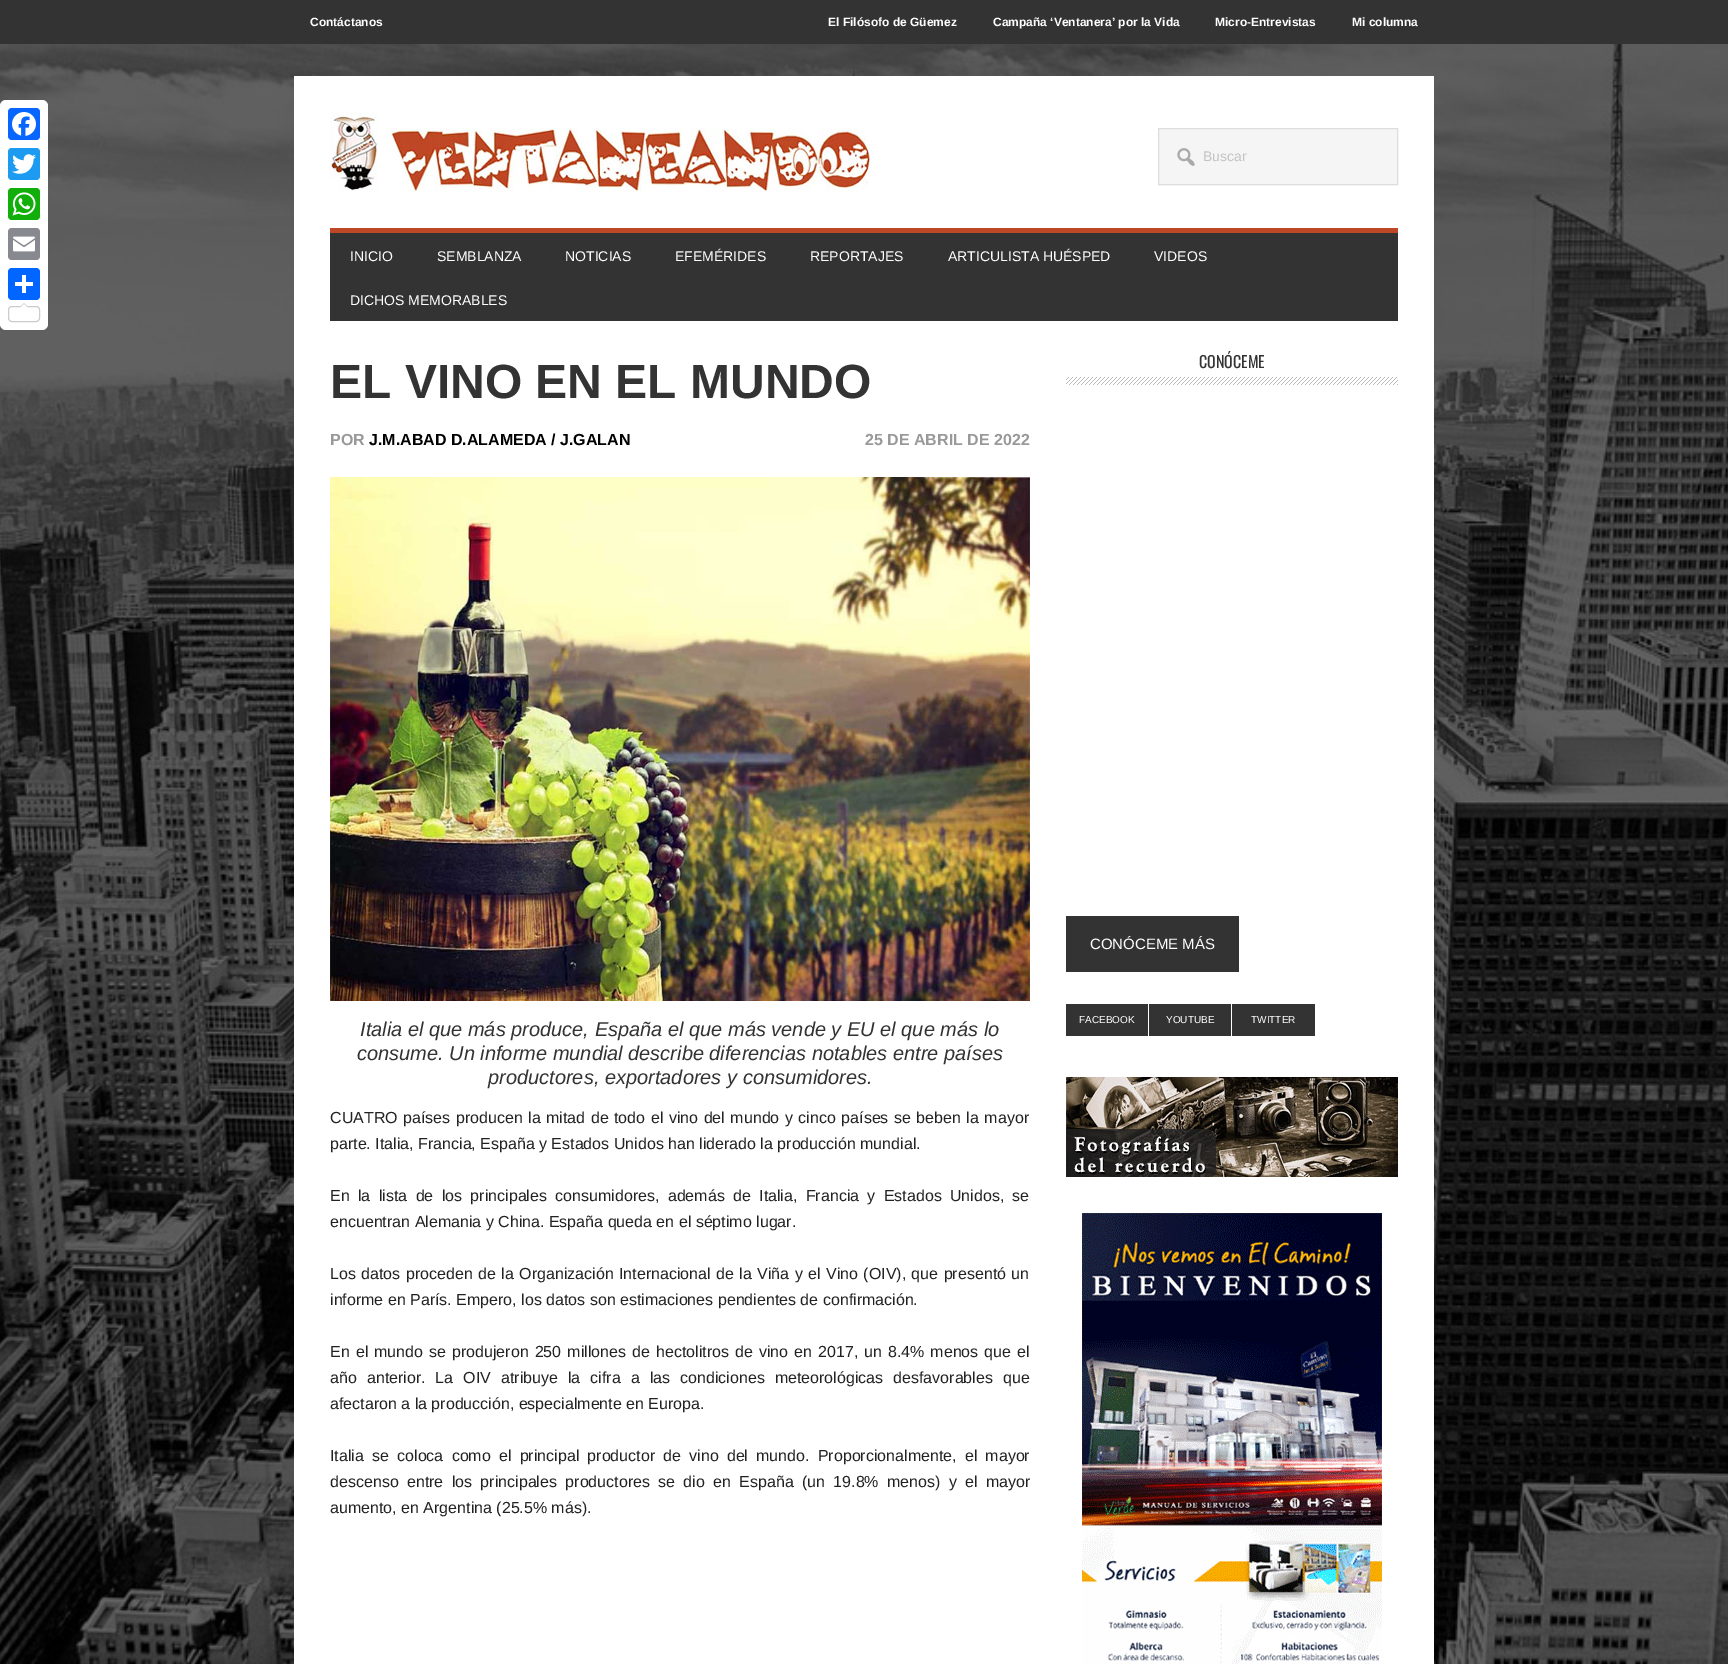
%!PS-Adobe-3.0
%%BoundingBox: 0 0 1728 1664
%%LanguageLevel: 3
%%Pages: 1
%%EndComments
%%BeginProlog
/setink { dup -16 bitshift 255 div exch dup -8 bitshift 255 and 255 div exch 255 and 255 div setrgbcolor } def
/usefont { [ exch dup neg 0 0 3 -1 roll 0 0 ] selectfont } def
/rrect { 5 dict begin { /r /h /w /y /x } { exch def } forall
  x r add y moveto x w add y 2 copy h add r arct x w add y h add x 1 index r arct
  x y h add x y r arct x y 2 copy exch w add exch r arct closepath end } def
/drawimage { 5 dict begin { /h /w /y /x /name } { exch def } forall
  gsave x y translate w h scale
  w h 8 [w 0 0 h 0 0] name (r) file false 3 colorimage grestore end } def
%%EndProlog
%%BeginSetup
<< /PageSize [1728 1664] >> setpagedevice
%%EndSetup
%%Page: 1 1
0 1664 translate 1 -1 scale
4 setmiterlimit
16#FFFFFF setink
0 0 1728 1664 rectfill
16#333333 setink
0 0 1728 44 rectfill
/LiberationSans-Bold 12 usefont
16#FFFFFF setink
[
    [(Contáctanos) 310 26]
    [(El Filósofo de Güemez) 828 26]
    [(Campaña ‘Ventanera’ por la Vida) 993 26]
    [(Micro-Entrevistas) 1215 26]
    [(Mi columna) 1352 26]
] { aload pop moveto show } forall
(img7.raw) 0 44 1728 1620 drawimage
294 76 1140 1588 rectfill
(img1.raw) 330 112 540 80 drawimage
16#F5F5F5 setink
1158.5 128.5 moveto 1397.5 128.5 lineto 1397.5 184.5 lineto 1158.5 184.5 lineto closepath gsave fill grestore
16#DDDDDD setink
stroke
(img2.raw) 1177 148 18 18 drawimage
/LiberationSans-Regular 14 usefont
16#C3C3C3 setink
1203 161 moveto (Buscar) show
16#333333 setink
330 233 1068 88 rectfill
16#BE4725 setink
330 228 1068 5 rectfill
16#FFFFFF setink
[
    [(INICIO) 350 261]
    [(SEMBLANZA) 437 261]
    [(NOTICIAS) 565 261]
    [(EFEMÉRIDES) 675 261]
    [(REPORTAJES) 810 261]
    [(ARTICULISTA HUÉSPED) 948 261]
    [(VIDEOS) 1154 261]
    [(DICHOS MEMORABLES) 350 305]
] { aload pop moveto show } forall
/LiberationSans-Bold 48 usefont
16#333333 setink
330 398 moveto (EL VINO EN EL MUNDO) show
/LiberationSans-Bold 16 usefont
16#999999 setink
330 445 moveto (POR) show
16#000000 setink
369 445 moveto (J.M.ABAD D.ALAMEDA / J.GALAN) show
16#999999 setink
865 445 moveto (25 DE ABRIL DE 2022) show
(img3.raw) 330 477 700 524 drawimage
/LiberationSans-Italic 20 usefont
16#333333 setink
[
    [(Italia el que más produce, España el que más vende y EU el que más lo) 360 1036]
    [(consume. Un informe mundial describe diferencias notables entre países) 357 1060]
    [(productores, exportadores y consumidores.) 488 1084]
] { aload pop moveto show } forall
/LiberationSans-Regular 16 usefont
16#222222 setink
330 1123 moveto (CUATRO) show
403 1123 moveto 1.1 0 32 (países producen la mitad de todo el vino del mundo y cinco países se beben la mayor) widthshow
330 1149 moveto (parte. Italia, Francia, España y Estados Unidos han liderado la producción mundial.) show
330 1201 moveto 3.9 0 32 (En la lista de los principales consumidores, además de Italia, Francia y Estados Unidos, se) widthshow
330 1227 moveto (encuentran Alemania y China. España queda en el séptimo lugar.) show
330 1279 moveto 1 0 32 (Los datos proceden de la Organización Internacional de la Viña y el Vino \(OIV\), que presentó un) widthshow
330 1305 moveto (informe en París. Empero, los datos son estimaciones pendientes de confirmación.) show
330 1357 moveto 1.6 0 32 (En el mundo se produjeron 250 millones de hectolitros de vino en 2017, un 8.4% menos que el) widthshow
330 1383 moveto 5.6 0 32 (año anterior. La OIV atribuye la cifra a las condiciones meteorológicas desfavorables que) widthshow
330 1409 moveto (afectaron a la producción, especialmente en Europa.) show
330 1461 moveto 3.75 0 32 (Italia se coloca como el principal productor de vino del mundo. Proporcionalmente, el mayor) widthshow
330 1487 moveto 3.9 0 32 (descenso entre los principales productores se dio en España \(un 19.8% menos\) y el mayor) widthshow
330 1513 moveto (aumento, en Argentina \(25.5% más\).) show
(img4.raw) 1066 377 332 8 drawimage
/Oswald-Regular 16 usefont
16#333333 setink
1199 368 moveto (CONÓCEME) show
1066 916 173 56 rectfill
/LiberationSans-Regular 15 usefont
16#FFFFFF setink
1090 949 moveto (CONÓCEME MÁS) show
16#333333 setink
1066 1004 82 32 rectfill
/LiberationSans-Regular 10 usefont
16#FFFFFF setink
1079 1023 moveto (FACEBOOK) show
16#333333 setink
1149 1004 82 32 rectfill
16#FFFFFF setink
1166 1023 moveto (YOUTUBE) show
16#333333 setink
1232 1004 83 32 rectfill
16#FFFFFF setink
1251 1023 moveto (TWITTER) show
(img5.raw) 1066 1077 332 100 drawimage
(img6.raw) 1082 1213 300 451 drawimage
0 100 48 230 6 rrect fill
16#0866FF setink
8 108 32 32 4 rrect fill
(img8.raw) 12 112 24 24 drawimage
16#1D9BF0 setink
8 148 32 32 4 rrect fill
(img9.raw) 12 154 24 20 drawimage
16#12AF0A setink
8 188 32 32 4 rrect fill
(img10.raw) 12 192 24 24 drawimage
16#888990 setink
8 228 32 32 4 rrect fill
(img11.raw) 13 236 22 16 drawimage
16#0166FF setink
8 268 32 32 4 rrect fill
16#FFFFFF setink
22 275 4 18 rectfill
15 282 18 4 rectfill
16#CCCCCC setink
8.5 306.5 31 15 3.5 rrect stroke
28 307 moveto 20 307 lineto 24 303 lineto closepath fill
16#FFFFFF setink
28 308 moveto 20 308 lineto 24 304 lineto closepath fill
showpage
%%EOF
